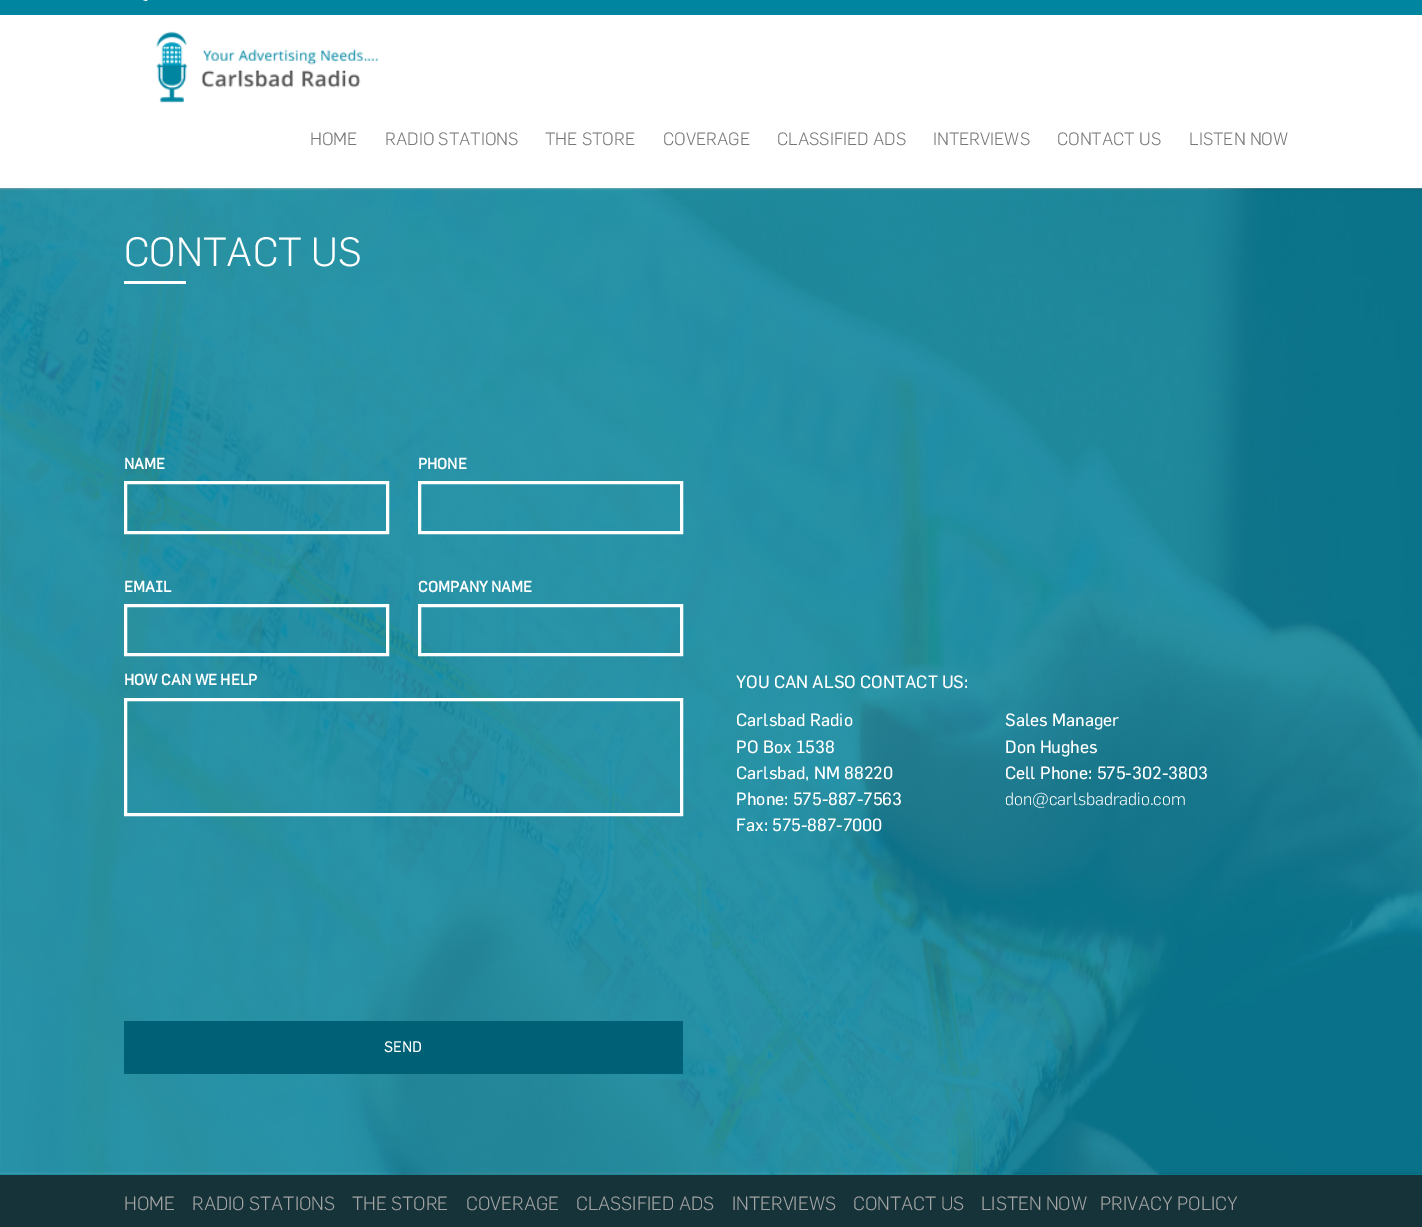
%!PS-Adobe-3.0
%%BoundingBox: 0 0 1422 1227
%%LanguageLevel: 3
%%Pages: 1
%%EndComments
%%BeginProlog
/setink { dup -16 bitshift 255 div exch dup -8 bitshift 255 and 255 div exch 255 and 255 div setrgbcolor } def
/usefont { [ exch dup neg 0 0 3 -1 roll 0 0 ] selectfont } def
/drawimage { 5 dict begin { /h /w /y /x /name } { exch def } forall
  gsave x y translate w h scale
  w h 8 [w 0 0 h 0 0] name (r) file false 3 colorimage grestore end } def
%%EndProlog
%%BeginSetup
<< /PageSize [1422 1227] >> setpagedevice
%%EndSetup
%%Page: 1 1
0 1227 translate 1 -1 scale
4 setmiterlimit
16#0085A1 setink
0 0 1422 1227 rectfill
(img1.raw) 142 0 6 1 drawimage
16#FFFFFF setink
0 15 1422 174 rectfill
(img2.raw) 156 31 222 72 drawimage
/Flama-Light 17.5 usefont
16#767676 setink
[
    [(HOME) 310 145]
    [(RADIO STATIONS) 385 145]
    [(THE STORE) 545 145]
    [(COVERAGE) 663 145]
    [(CLASSIFIED ADS) 777 145]
    [(INTERVIEWS) 933 145]
    [(CONTACT US) 1057 145]
    [(LISTEN NOW) 1189 145]
] { aload pop moveto show } forall
(img3.raw) 0 188 1422 987 drawimage
/Flama-Light 40 usefont
16#FFFFFF setink
124 266 moveto (CONTACT US) show
124 281 62 3 rectfill
/Flama-Bold 15 usefont
124 469 moveto (NAME) show
3 setlinewidth
125.5 482.5 262 50 rectstroke
124 592 moveto (EMAIL) show
125.5 605.5 262 49 rectstroke
418 469 moveto (PHONE) show
419.5 482.5 262 50 rectstroke
418 592 moveto (COMPANY NAME) show
419.5 605.5 262 49 rectstroke
124 685 moveto (HOW CAN WE HELP) show
125.5 699.5 556 115 rectstroke
16#006176 setink
124 1021 559 53 rectfill
/Flama-Medium 15 usefont
16#FFFFFF setink
384 1052 moveto (SEND) show
/Flama-Medium 17.5 usefont
[
    [(YOU CAN ALSO CONTACT US:) 736 688]
    [(Carlsbad Radio) 736 726]
    [(PO Box 1538) 736 753]
    [(Carlsbad, NM 88220) 736 779]
    [(Phone: 575-887-7563) 736 805]
    [(Fax: 575-887-7000) 736 831]
    [(Sales Manager) 1005 726]
    [(Don Hughes) 1005 753]
    [(Cell Phone: 575-302-3803) 1005 779]
] { aload pop moveto show } forall
/Flama-Light 17.5 usefont
1005 805 moveto (don@carlsbadradio.com) show
16#153339 setink
0 1175 1422 52 rectfill
/Flama-Light 18.75 usefont
16#A5A5A5 setink
[
    [(HOME) 124 1210]
    [(RADIO STATIONS) 192 1210]
    [(THE STORE) 352 1210]
    [(COVERAGE) 466 1210]
    [(CLASSIFIED ADS) 576 1210]
    [(INTERVIEWS) 732 1210]
    [(CONTACT US) 853 1210]
    [(LISTEN NOW) 981 1210]
    [(PRIVACY POLICY) 1100 1210]
] { aload pop moveto show } forall
showpage
%%EOF
